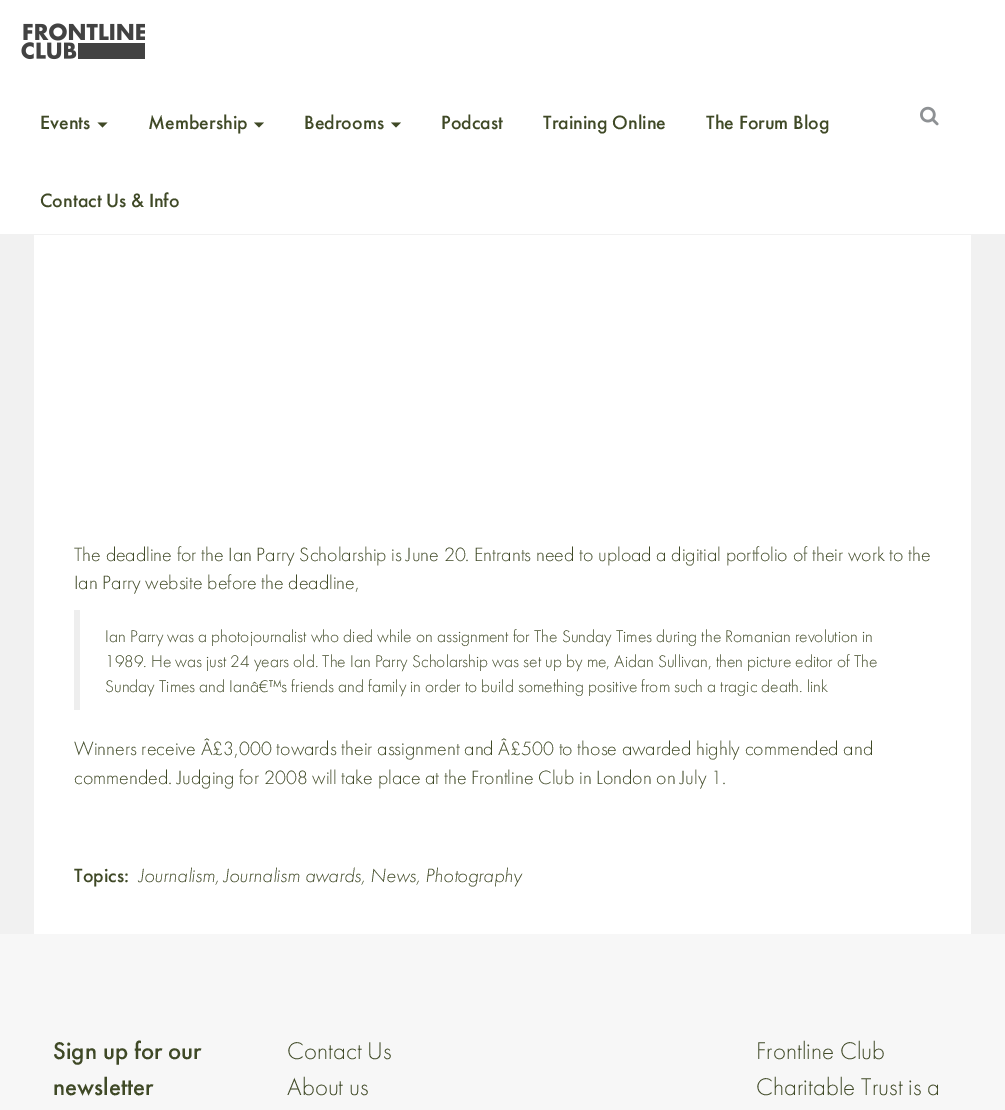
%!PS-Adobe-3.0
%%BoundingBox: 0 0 1005 1110
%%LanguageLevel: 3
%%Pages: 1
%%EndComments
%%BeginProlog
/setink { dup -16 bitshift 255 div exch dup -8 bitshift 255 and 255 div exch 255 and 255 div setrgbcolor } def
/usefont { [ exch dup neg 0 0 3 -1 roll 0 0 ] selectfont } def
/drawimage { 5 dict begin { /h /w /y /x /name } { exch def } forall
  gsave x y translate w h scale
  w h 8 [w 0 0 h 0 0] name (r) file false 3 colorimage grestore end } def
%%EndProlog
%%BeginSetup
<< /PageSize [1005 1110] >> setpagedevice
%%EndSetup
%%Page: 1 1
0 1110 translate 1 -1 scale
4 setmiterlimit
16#F1F1F1 setink
0 0 1005 1110 rectfill
16#FFFFFF setink
0 0 1005 234 rectfill
(img1.raw) 21 23 124 37 drawimage
/FuturaPT-Medium 20 usefont
16#3F4926 setink
40 129 moveto (Events) show
97.5 122.5 moveto 107.5 122.5 lineto 102.5 127.5 lineto closepath fill
148 129 moveto (Membership) show
254 122.5 moveto 264 122.5 lineto 259 127.5 lineto closepath fill
304 129 moveto (Bedrooms) show
391 122.5 moveto 401 122.5 lineto 396 127.5 lineto closepath fill
[
    [(Podcast) 441 129]
    [(Training Online) 543 129]
    [(The Forum Blog) 706 129]
    [(Contact Us & Info) 40 207]
] { aload pop moveto show } forall
(img2.raw) 920 106 19 20 drawimage
16#FFFFFF setink
34 235 937 699 rectfill
/FuturaPT-Light 20 usefont
16#3F4926 setink
74 561 moveto (The deadline for the Ian Parry Scholarship is June 20. Entrants need to upload a digitial portfolio of their work to the) show
74 589 moveto (Ian Parry website before the deadline,) show
16#EEEEEE setink
74 610 6 100 rectfill
/FuturaPT-Light 17.5 usefont
16#3F4926 setink
[
    [(Ian Parry was a photojournalist who died while on assignment for The Sunday Times during the Romanian revolution in) 105 642]
    [(1989. He was just 24 years old. The Ian Parry Scholarship was set up by me, Aidan Sullivan, then picture editor of The) 105 667]
    [(Sunday Times and Ianâ€™s friends and family in order to build something positive from such a tragic death. link) 105 692]
] { aload pop moveto show } forall
/FuturaPT-Light 20 usefont
74 755 moveto (Winners receive Â£3,000 towards their assignment and Â£500 to those awarded highly commended and) show
74 784 moveto (commended. Judging for 2008 will take place at the Frontline Club in London on July 1.) show
/FuturaPT-Medium 20 usefont
74 882 moveto (Topics:) show
/FuturaPT-LightItalic 20 usefont
139 882 moveto (Journalism, Journalism awards, News, Photography) show
16#F7F7F7 setink
0 934 1005 176 rectfill
/FuturaPT-Medium 25 usefont
16#3F4926 setink
53 1059 moveto (Sign up for our) show
53 1095 moveto (newsletter) show
/FuturaPT-Light 25 usefont
[
    [(Contact Us) 287 1059]
    [(About us) 287 1095]
    [(Frontline Club) 756 1059]
    [(Charitable Trust is a) 756 1095]
] { aload pop moveto show } forall
showpage
%%EOF
